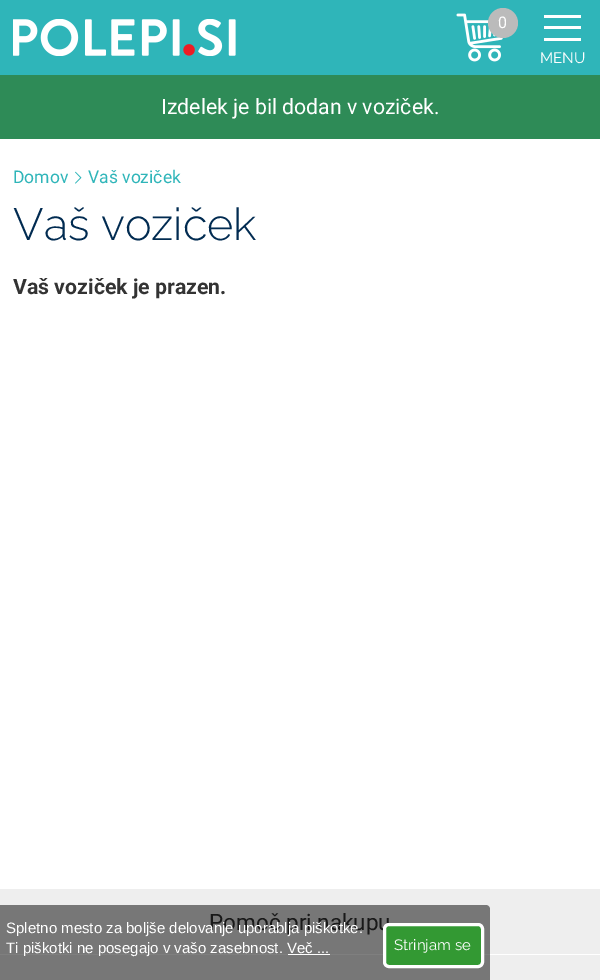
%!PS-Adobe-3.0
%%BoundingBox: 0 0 600 980
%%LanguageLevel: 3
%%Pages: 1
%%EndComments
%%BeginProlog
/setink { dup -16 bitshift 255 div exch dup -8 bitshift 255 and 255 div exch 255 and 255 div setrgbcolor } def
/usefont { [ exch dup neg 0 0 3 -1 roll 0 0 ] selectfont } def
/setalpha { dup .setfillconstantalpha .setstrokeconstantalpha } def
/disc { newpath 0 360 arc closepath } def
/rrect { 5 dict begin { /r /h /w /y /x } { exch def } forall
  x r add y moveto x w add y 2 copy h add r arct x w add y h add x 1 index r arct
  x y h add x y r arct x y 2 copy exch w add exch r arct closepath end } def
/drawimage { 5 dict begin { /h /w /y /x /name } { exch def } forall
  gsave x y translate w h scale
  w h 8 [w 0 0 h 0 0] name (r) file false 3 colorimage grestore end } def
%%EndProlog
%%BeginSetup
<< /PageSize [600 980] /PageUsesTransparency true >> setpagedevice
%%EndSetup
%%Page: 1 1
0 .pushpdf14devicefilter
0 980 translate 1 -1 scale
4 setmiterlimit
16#FFFFFF setink
0 0 600 980 rectfill
16#2FB5B9 setink
0 0 600 75 rectfill
(img1.raw) 13 19 223 37 drawimage
(img2.raw) 456 13 47 49 drawimage
16#BBBBBB setink
503 23 15 disc fill
/Roboto-Regular 16 usefont
16#FFFFFF setink
498 28 moveto (0) show
[
    [544 26 37 3 16#FFFFFF]
    [544 15 37 3 16#FFFFFF]
    [544 38 37 3 16#FFFFFF]
] { aload pop setink rectfill } forall
/Raleway-Regular 15 usefont
540 63 moveto (MENU) show
16#2E8B57 setink
0 75 600 64 rectfill
/Roboto-Regular 21.25 usefont
16#FFFFFF setink
161 114 moveto (Izdelek je bil dodan v voziček.) show
/Roboto-Regular 17.5 usefont
16#2FB5B9 setink
13 183 moveto (Domov) show
(img3.raw) 75 171 7 13 drawimage
88 183 moveto (Vaš voziček) show
/Raleway-Light 45 usefont
16#012B51 setink
13 240 moveto (Vaš voziček) show
/Roboto-Bold 21.25 usefont
16#333333 setink
13 294 moveto (Vaš voziček je prazen.) show
16#EEEEEE setink
0 889 600 91 rectfill
/Roboto-Regular 22.5 usefont
16#333333 setink
209 930 moveto (Pomoč pri nakupu) show
16#FFFFFF setink
0 954 600 1 rectfill
0.5 setalpha
16#000000 setink
0 905 moveto 486 905 lineto 488 905 490 907 490 909 curveto 490 980 lineto 0 980 lineto closepath fill
/LiberationSans-Regular 15 usefont
1 setalpha
16#FFFFFF setink
6 933 moveto (Spletno mesto za boljše delovanje uporablja piškotke.) show
6 953 moveto (Ti piškotki ne posegajo v vašo zasebnost. Več ...) show
288 954 42 1 rectfill
16#339933 setink
384.5 924.5 98 42 4.5 rrect gsave fill grestore
16#FFFFFF setink
3 setlinewidth
stroke
/Raleway-Regular 15 usefont
394 950 moveto (Strinjam se) show
.poppdf14devicefilter showpage
%%EOF
